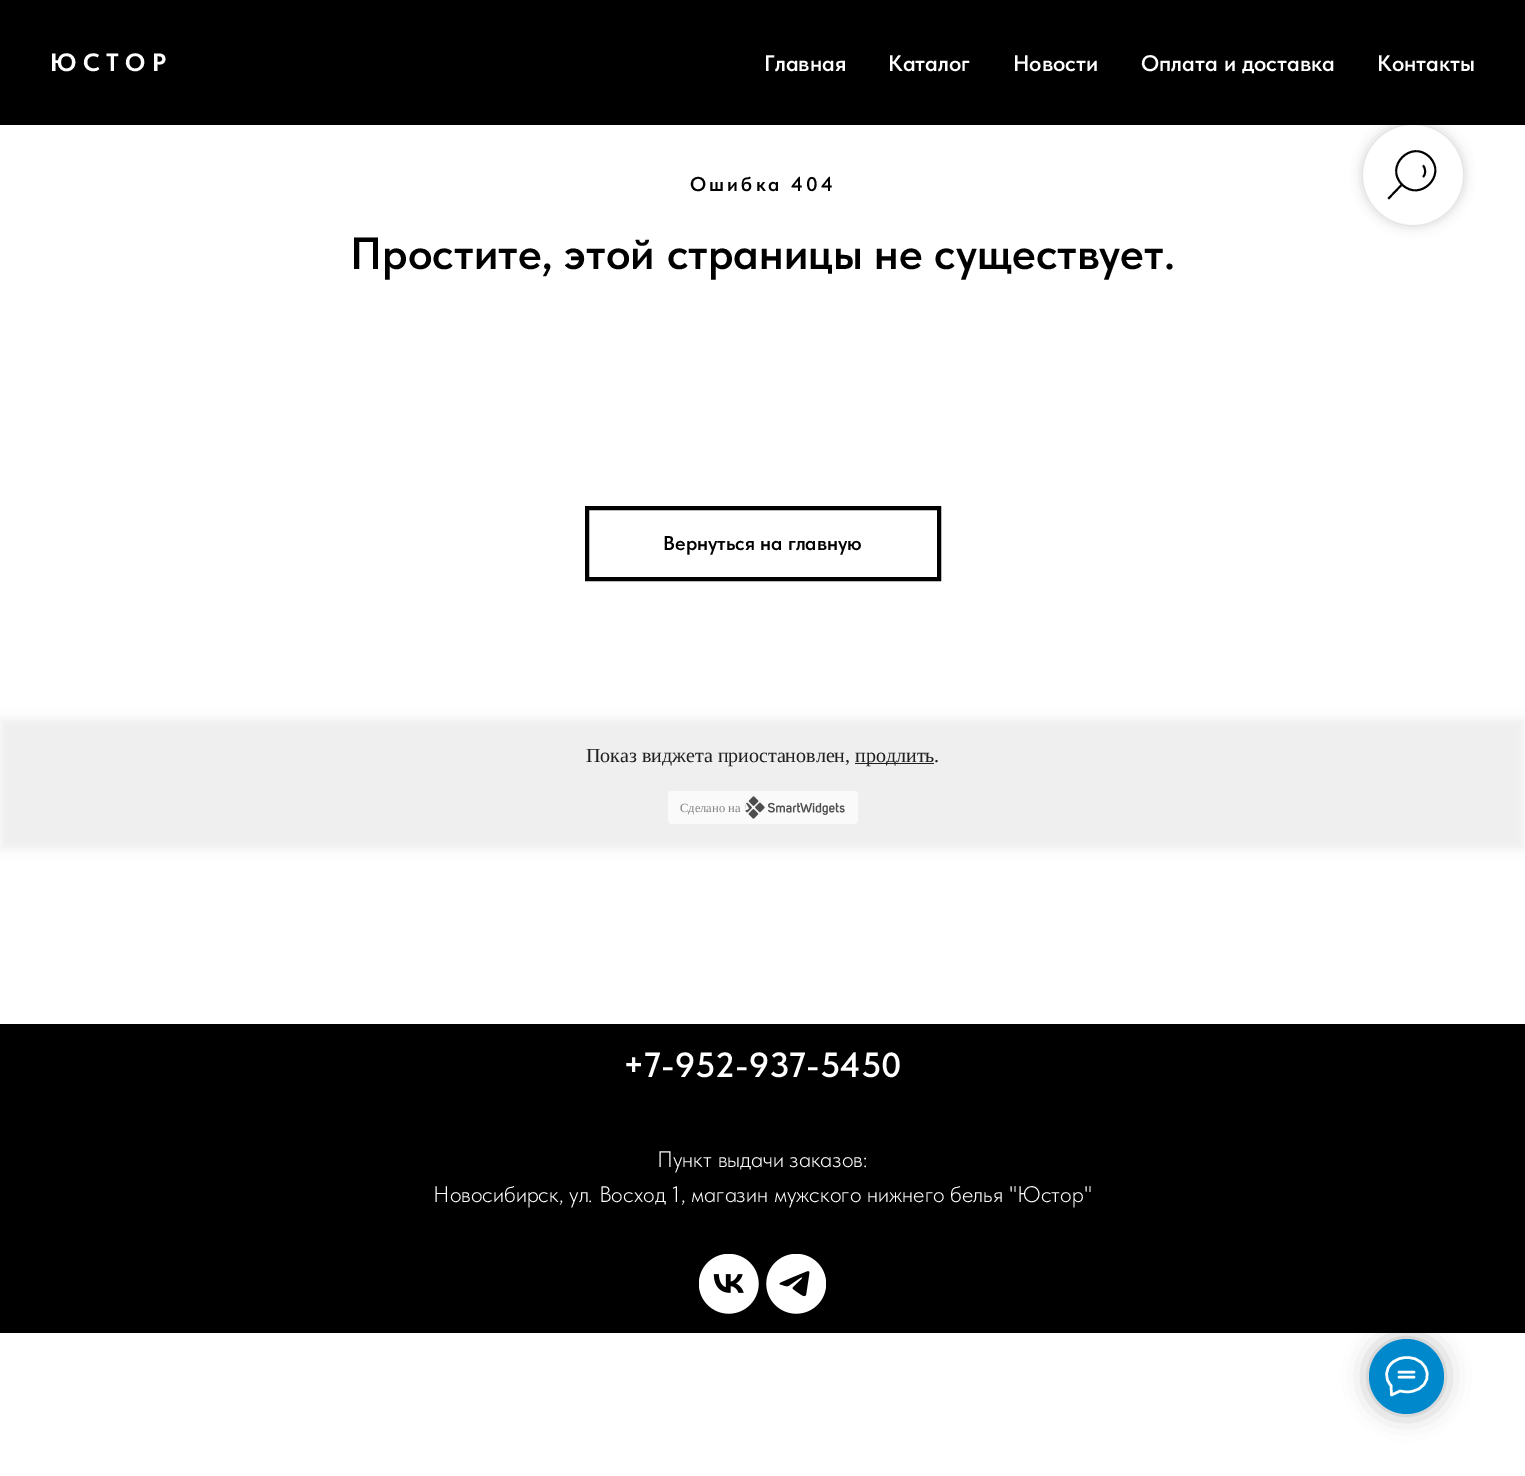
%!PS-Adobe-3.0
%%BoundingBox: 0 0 1525 1476
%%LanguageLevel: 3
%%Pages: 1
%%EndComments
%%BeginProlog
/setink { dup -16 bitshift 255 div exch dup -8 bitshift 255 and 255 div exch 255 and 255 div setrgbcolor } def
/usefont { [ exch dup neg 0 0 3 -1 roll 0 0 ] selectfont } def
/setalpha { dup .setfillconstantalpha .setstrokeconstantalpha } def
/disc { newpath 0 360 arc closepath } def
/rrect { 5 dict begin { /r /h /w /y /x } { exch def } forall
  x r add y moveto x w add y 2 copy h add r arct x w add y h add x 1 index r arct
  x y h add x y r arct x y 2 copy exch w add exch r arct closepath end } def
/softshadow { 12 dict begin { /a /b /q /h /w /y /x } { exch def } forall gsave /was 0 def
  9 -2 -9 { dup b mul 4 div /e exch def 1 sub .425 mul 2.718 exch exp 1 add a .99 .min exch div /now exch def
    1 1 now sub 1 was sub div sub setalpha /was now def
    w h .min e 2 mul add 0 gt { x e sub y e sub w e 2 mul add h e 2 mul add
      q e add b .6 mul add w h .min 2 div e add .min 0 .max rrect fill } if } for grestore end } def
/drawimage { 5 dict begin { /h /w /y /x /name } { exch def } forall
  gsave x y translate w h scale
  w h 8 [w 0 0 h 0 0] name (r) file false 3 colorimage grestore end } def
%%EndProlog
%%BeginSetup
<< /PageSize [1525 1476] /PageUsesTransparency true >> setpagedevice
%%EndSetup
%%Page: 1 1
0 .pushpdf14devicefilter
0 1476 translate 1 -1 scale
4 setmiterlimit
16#FFFFFF setink
0 0 1525 1476 rectfill
16#000000 setink
0 0 1525 125 rectfill
/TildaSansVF-Bold 25 usefont
16#FFFFFF setink
50 71 moveto (Ю С Т О Р) show
/TildaSansVF-SemiBold 22.5 usefont
[
    [(Главная) 764 71]
    [(Каталог) 888 71]
    [(Новости) 1013 71]
    [(Оплата и доставка) 1141 71]
    [(Контакты) 1377 71]
] { aload pop moveto show } forall
gsave
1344 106 moveto 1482 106 lineto 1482 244 lineto 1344 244 lineto closepath 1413 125 moveto 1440.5 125 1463 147.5 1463 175 curveto 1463 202.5 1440.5 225 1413 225 curveto 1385.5 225 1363 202.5 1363 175 curveto 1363 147.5 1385.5 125 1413 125 curveto closepath eoclip newpath
16#000000 setink
1363 125 100 100 50 6 0.2 softshadow
grestore
0.8 setalpha
1413 175 50 disc fill
1 setalpha
16#000000 setink
1.9 setlinewidth
2 setlinecap
1401.5 185 moveto 1389 198 lineto stroke
0 setlinecap
1429.5 157 moveto 1447.5 175 1420 202.5 1402 184.5 curveto 1384 166.5 1411.5 139 1429.5 157 curveto closepath 1423 165.5 moveto 1426 169 1426 174 1423 177 curveto stroke
/TildaSansVF-SemiBold 20 usefont
690 191 moveto 3.1 0 (Ошибка 404) ashow
/TildaSansVF-SemiBold 45 usefont
350 269 moveto (Простите, этой страницы не существует.) show
4 setlinewidth
587 508 352 71 rectstroke
/TildaSansVF-SemiBold 20 usefont
663 550 moveto (Вернуться на главную) show
16#EEEEEE setink
0 719 1525 130 0 5 1 softshadow
/LiberationSerif-Regular 20 usefont
16#212121 setink
586 762 moveto (Показ виджета приостановлен,) show
855 763 79 1 rectfill
855 762 moveto (продлить.) show
16#FAFAFA setink
668 791 190 33 4 rrect fill
/LiberationSerif-Regular 12.5 usefont
16#808080 setink
680 812 moveto (Сделано на) show
(img1.raw) 745 796 100 23 drawimage
16#000000 setink
0 1024 1525 309 rectfill
/TildaSansVF-SemiBold 35 usefont
16#FFFFFF setink
623 1077 moveto (+7-952-937-5450) show
/TildaSansVF-Light 22.5 usefont
657 1167 moveto (Пункт выдачи заказов:) show
433 1202 moveto (Новосибирск, ул. Восход 1, магазин мужского нижнего белья "Юстор") show
(img2.raw) 699 1254 60 60 drawimage
(img3.raw) 766 1254 60 60 drawimage
16#000000 setink
1369 1339 75 75 37.5 12.5 0.3 softshadow
16#0088CC setink
1406.5 1376.5 37.5 disc fill
16#FFFFFF setink
2.5 setlinewidth
1 setlinecap
1 setlinejoin
1399 1372 moveto 1414 1372 lineto 1399 1377 moveto 1414 1377 lineto 1391 1385.5 moveto 1384.5 1379 1385 1368.5 1392.5 1362.5 curveto 1396.5 1359 1401.5 1357.5 1407 1357.5 curveto 1431 1357.5 1435.5 1387.5 1411 1391.5 curveto 1407 1392.5 1404 1391.5 1400 1391 curveto 1391.5 1395 lineto closepath stroke
.poppdf14devicefilter showpage
%%EOF
